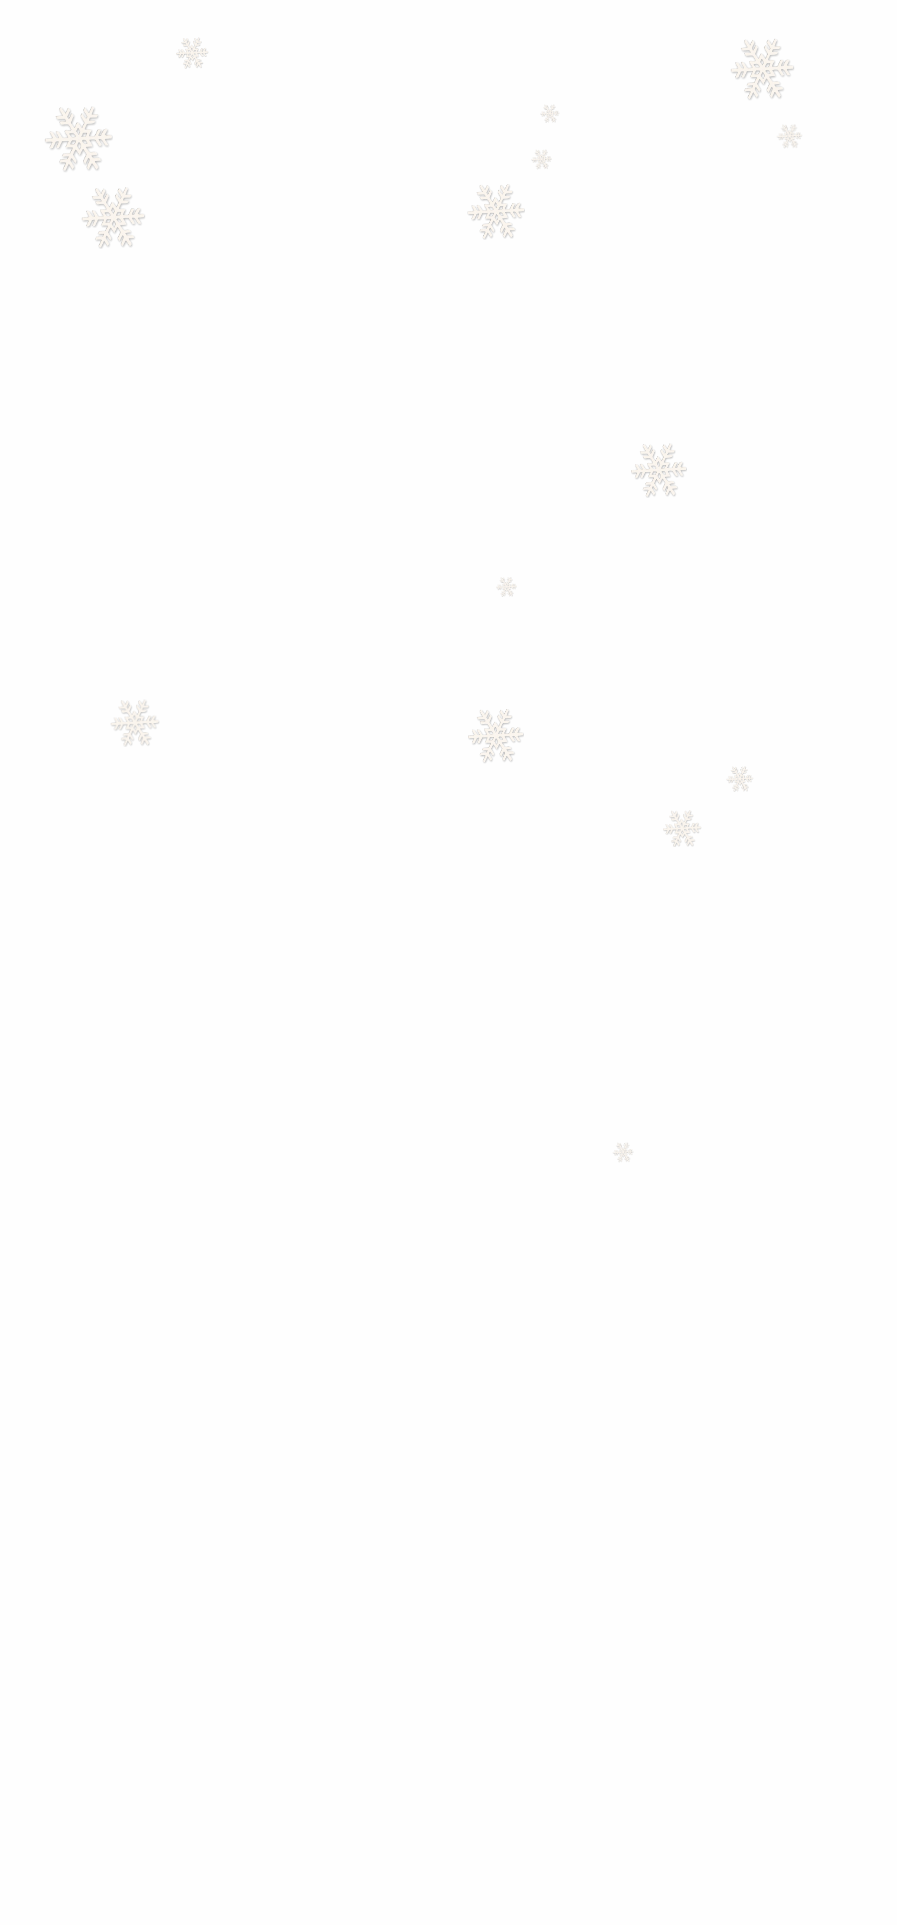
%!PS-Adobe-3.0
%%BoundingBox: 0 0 897 1925
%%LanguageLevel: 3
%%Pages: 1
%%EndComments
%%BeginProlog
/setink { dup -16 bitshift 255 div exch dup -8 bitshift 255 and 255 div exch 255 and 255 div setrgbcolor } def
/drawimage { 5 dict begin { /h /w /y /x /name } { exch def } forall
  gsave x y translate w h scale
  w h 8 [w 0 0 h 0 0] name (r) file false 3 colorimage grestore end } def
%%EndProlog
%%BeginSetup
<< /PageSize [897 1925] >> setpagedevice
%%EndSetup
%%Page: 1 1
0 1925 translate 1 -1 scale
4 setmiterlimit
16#FEFEFE setink
0 0 897 1925 rectfill
(img1.raw) 176 37 33 32 drawimage
(img2.raw) 730 38 65 63 drawimage
(img3.raw) 44 106 69 67 drawimage
(img4.raw) 540 104 20 19 drawimage
(img5.raw) 776 124 27 25 drawimage
(img6.raw) 531 149 21 21 drawimage
(img7.raw) 81 187 65 62 drawimage
(img8.raw) 467 184 58 56 drawimage
(img9.raw) 631 443 56 55 drawimage
(img10.raw) 496 577 21 20 drawimage
(img11.raw) 110 699 50 48 drawimage
(img12.raw) 468 709 56 55 drawimage
(img13.raw) 726 766 28 26 drawimage
(img14.raw) 663 810 39 37 drawimage
(img15.raw) 612 1142 22 21 drawimage
showpage
%%EOF
